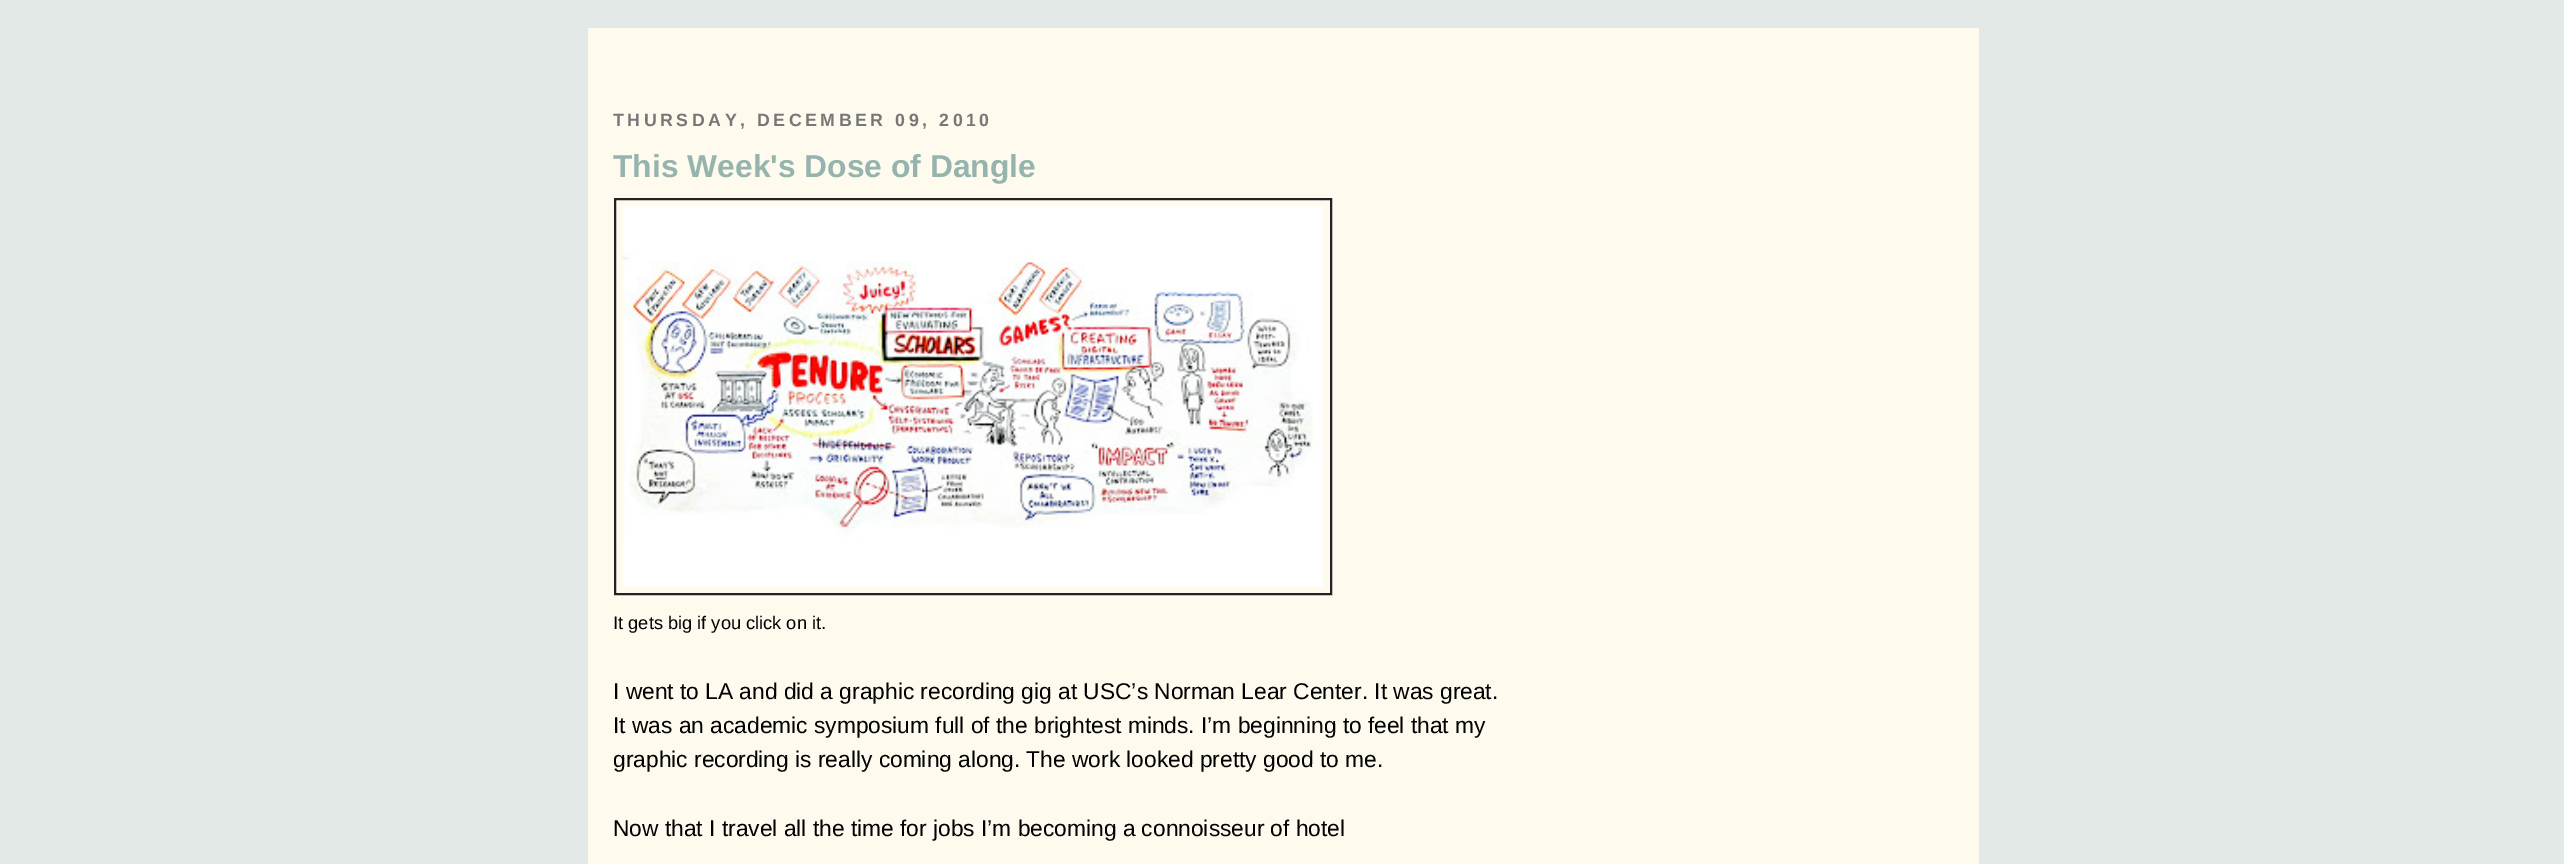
%!PS-Adobe-3.0
%%BoundingBox: 0 0 2564 864
%%LanguageLevel: 3
%%Pages: 1
%%EndComments
%%BeginProlog
/setink { dup -16 bitshift 255 div exch dup -8 bitshift 255 and 255 div exch 255 and 255 div setrgbcolor } def
/usefont { [ exch dup neg 0 0 3 -1 roll 0 0 ] selectfont } def
/drawimage { 5 dict begin { /h /w /y /x /name } { exch def } forall
  gsave x y translate w h scale
  w h 8 [w 0 0 h 0 0] name (r) file false 3 colorimage grestore end } def
%%EndProlog
%%BeginSetup
<< /PageSize [2564 864] >> setpagedevice
%%EndSetup
%%Page: 1 1
0 864 translate 1 -1 scale
4 setmiterlimit
16#E2E9E7 setink
0 0 2564 864 rectfill
16#FFFAEE setink
588 28 1391 836 rectfill
/LiberationSans-Bold 17.75 usefont
16#777777 setink
613 126 moveto 3.55 0 (THURSDAY, DECEMBER 09, 2010) ashow
/LiberationSans-Bold 31.8 usefont
16#94B4AD setink
613 177 moveto (This Week's Dose of Dangle) show
16#222222 setink
2 setlinewidth
615 199 716 395 rectstroke
(img1.raw) 623 206 700 381 drawimage
/LiberationSans-Regular 18.25 usefont
16#000000 setink
613 629 moveto (It gets big if you click on it.) show
/LiberationSans-Regular 22.75 usefont
[
    [(I went to LA and did a graphic recording gig at USC’s Norman Lear Center. It was great.) 613 699]
    [(It was an academic symposium full of the brightest minds. I’m beginning to feel that my) 613 733]
    [(graphic recording is really coming along. The work looked pretty good to me.) 613 767]
    [(Now that I travel all the time for jobs I’m becoming a connoisseur of hotel) 613 836]
] { aload pop moveto show } forall
showpage
%%EOF
